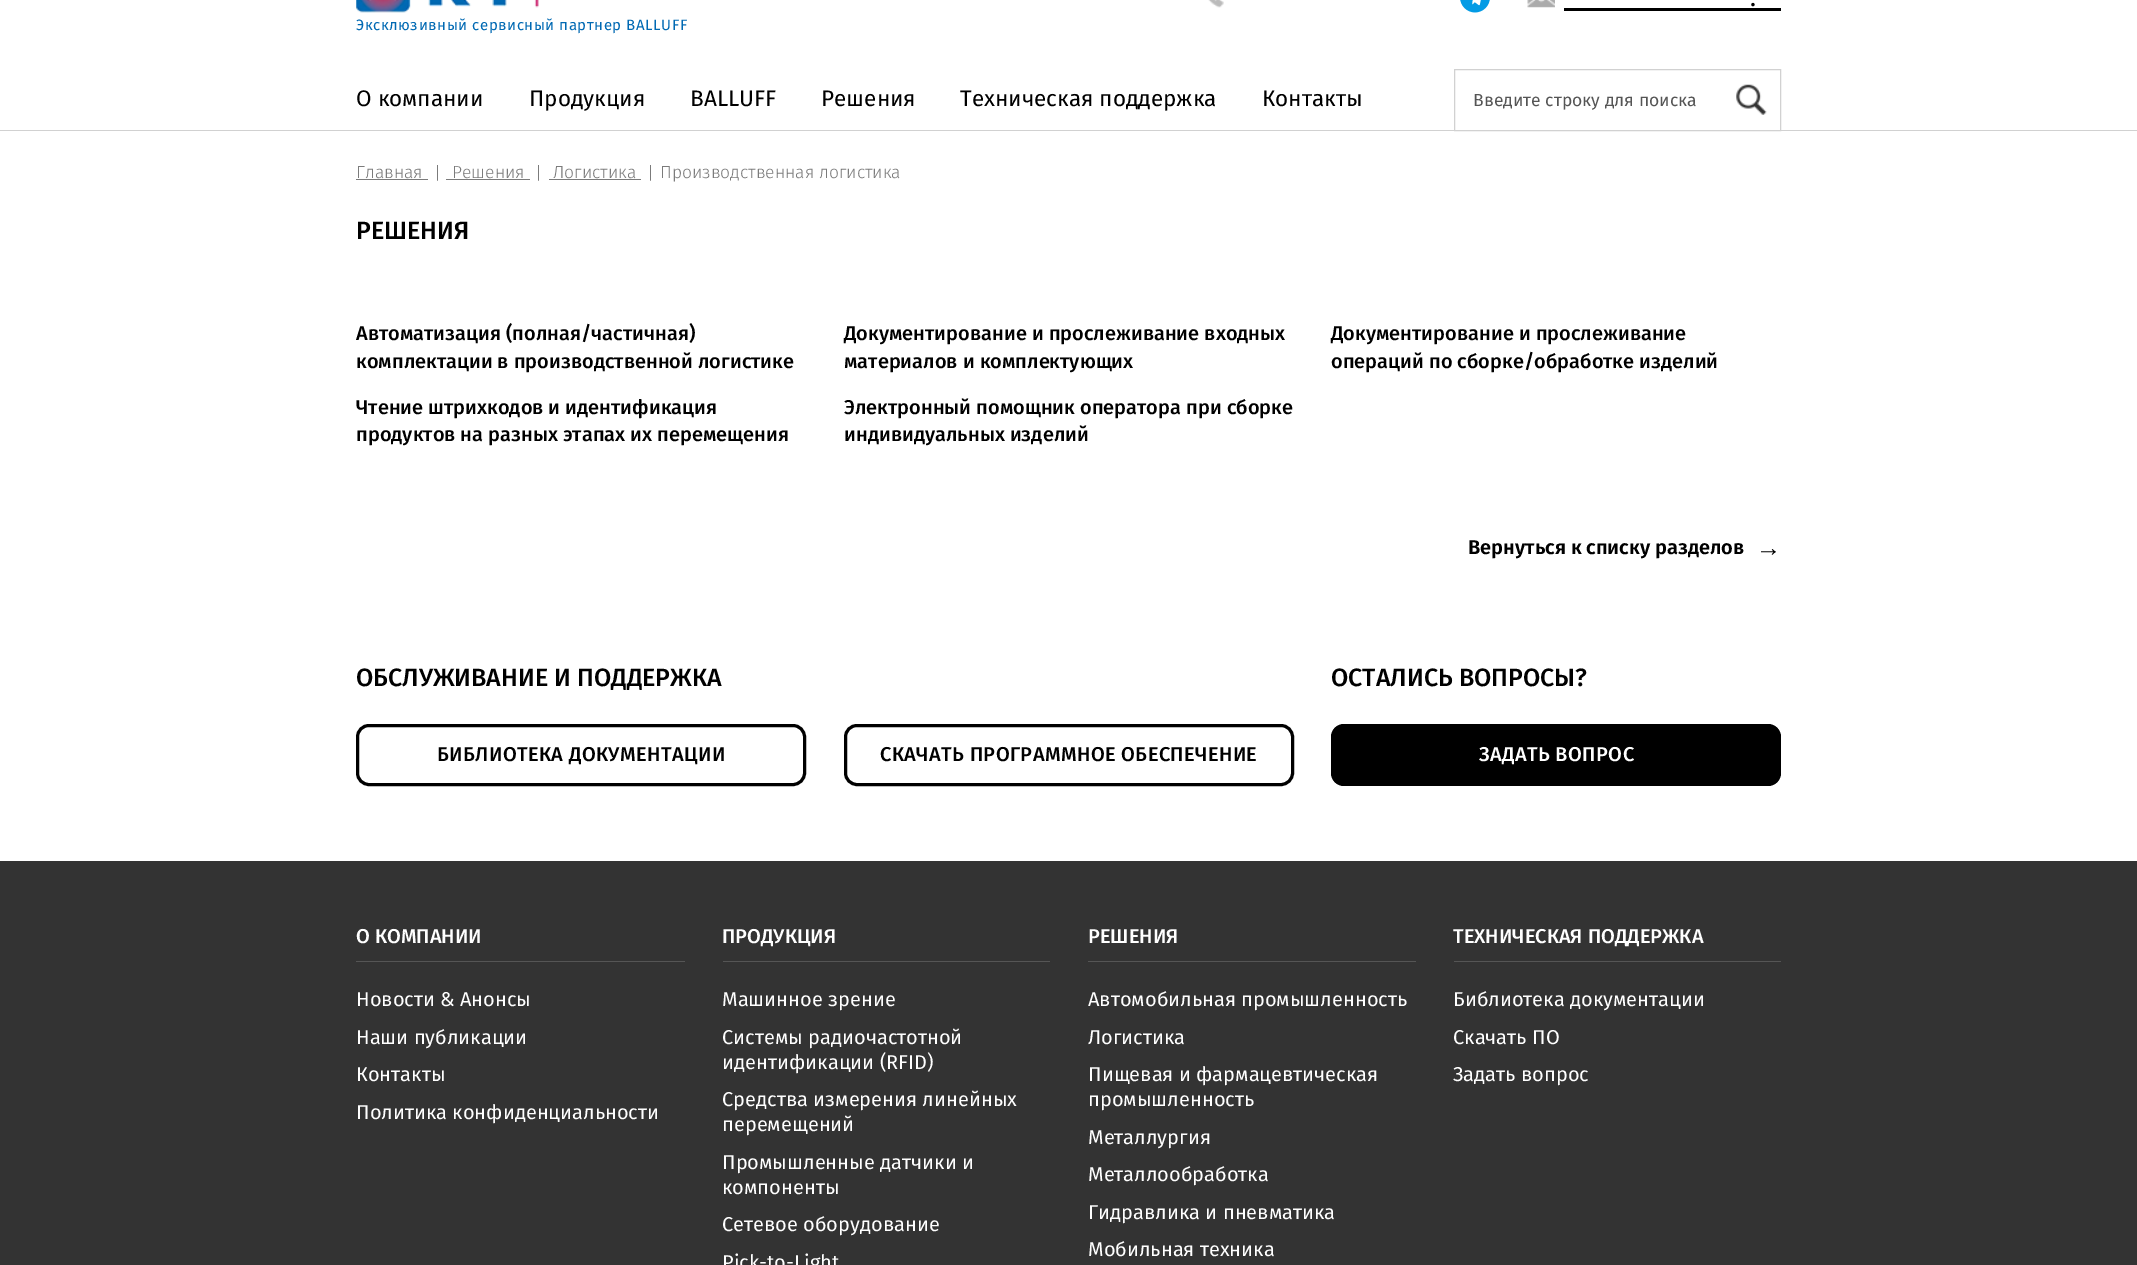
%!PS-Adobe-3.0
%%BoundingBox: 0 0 2137 1265
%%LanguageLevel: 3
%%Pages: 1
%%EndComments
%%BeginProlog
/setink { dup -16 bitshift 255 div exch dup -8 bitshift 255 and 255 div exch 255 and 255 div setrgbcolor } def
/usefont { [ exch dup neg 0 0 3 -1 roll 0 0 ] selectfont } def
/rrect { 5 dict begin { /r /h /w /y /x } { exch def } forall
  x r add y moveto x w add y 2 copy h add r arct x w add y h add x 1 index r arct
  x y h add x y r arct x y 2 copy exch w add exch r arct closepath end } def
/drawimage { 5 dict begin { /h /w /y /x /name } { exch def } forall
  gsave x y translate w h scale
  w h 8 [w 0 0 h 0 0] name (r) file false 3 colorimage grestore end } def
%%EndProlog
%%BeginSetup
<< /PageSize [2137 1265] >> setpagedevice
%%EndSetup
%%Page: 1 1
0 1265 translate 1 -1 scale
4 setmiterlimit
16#FFFFFF setink
0 0 2137 1265 rectfill
(img1.raw) 1208 0 16 8 drawimage
(img2.raw) 1460 0 30 13 drawimage
(img3.raw) 1527 0 28 8 drawimage
/FiraSans-Regular 25 usefont
16#000000 setink
1750 6 moveto (.) show
1564 8 217 3 rectfill
(img4.raw) 356 0 183 13 drawimage
/FiraSans-Regular 15 usefont
16#0069B3 setink
356 30 moveto 0.55 0 (Эксклюзивный сервисный партнер BALLUFF) ashow
/FiraSans-Regular 22.5 usefont
16#000000 setink
[
    [(О компании) 356 106]
    [(Продукция) 529 106]
    [(BALLUFF) 690 106]
    [(Решения) 821 106]
    [(Техническая поддержка) 960 106]
    [(Контакты) 1262 106]
] { aload pop moveto show } forall
16#D1D1D1 setink
0 130 2137 1 rectfill
1454.5 69.5 326 61 rectstroke
/FiraSans-Regular 17.5 usefont
16#555555 setink
1473 106 moveto (Введите строку для поиска) show
(img5.raw) 1736 84 31 31 drawimage
/FiraSans-Light 17.5 usefont
16#7B7B7B setink
356 178 moveto (Главная) show
356 179 72 1 rectfill
434 179 moveto (|) show
452 178 moveto (Решения) show
446 179 84 1 rectfill
535 179 moveto (|) show
553 178 moveto (Логистика) show
549 179 92 1 rectfill
647 179 moveto (|) show
660 178 moveto (Производственная логистика) show
/FiraSans-Medium 25 usefont
16#000000 setink
356 239 moveto (РЕШЕНИЯ) show
/FiraSans-Medium 20 usefont
[
    [(Автоматизация \(полная/частичная\)) 356 340]
    [(комплектации в производственной логистике) 356 368]
    [(Документирование и прослеживание входных) 844 340]
    [(материалов и комплектующих) 844 368]
    [(Документирование и прослеживание) 1331 340]
    [(операций по сборке/обработке изделий) 1331 368]
    [(Чтение штрихкодов и идентификация) 356 414]
    [(продуктов на разных этапах их перемещения) 356 441]
    [(Электронный помощник оператора при сборке) 844 414]
    [(индивидуальных изделий) 844 441]
] { aload pop moveto show } forall
/FiraSans-SemiBold 20 usefont
1468 554 moveto (Вернуться к списку разделов) show
/LiberationSans-Bold 25 usefont
1756 556 moveto (→) show
/FiraSans-Medium 25 usefont
356 686 moveto (ОБСЛУЖИВАНИЕ И ПОДДЕРЖКА) show
3 setlinewidth
357.5 725.5 447 59 11.5 rrect stroke
/FiraSans-Medium 20 usefont
437 761 moveto 0.4 0 (БИБЛИОТЕКА ДОКУМЕНТАЦИИ) ashow
845.5 725.5 447 59 11.5 rrect stroke
880 761 moveto 0.4 0 (СКАЧАТЬ ПРОГРАММНОЕ ОБЕСПЕЧЕНИЕ) ashow
/FiraSans-Medium 25 usefont
1331 686 moveto (ОСТАЛИСЬ ВОПРОСЫ?) show
1331 724 450 62 13 rrect fill
/FiraSans-Medium 20 usefont
16#FFFFFF setink
1479 761 moveto 0.4 0 (ЗАДАТЬ ВОПРОС) ashow
16#333333 setink
0 861 2137 404 rectfill
16#555555 setink
356 961 329 1 rectfill
16#FFFFFF setink
356 943 moveto (О КОМПАНИИ) show
/FiraSans-Regular 20 usefont
[
    [(Новости & Анонсы) 356 1006]
    [(Наши публикации) 356 1044]
    [(Контакты) 356 1081]
    [(Политика конфиденциальности) 356 1119]
] { aload pop moveto show } forall
16#555555 setink
723 961 327 1 rectfill
/FiraSans-Medium 20 usefont
16#FFFFFF setink
722 943 moveto (ПРОДУКЦИЯ) show
/FiraSans-Regular 20 usefont
[
    [(Машинное зрение) 722 1006]
    [(Системы радиочастотной) 722 1044]
    [(идентификации \(RFID\)) 722 1069]
    [(Средства измерения линейных) 722 1106]
    [(перемещений) 722 1131]
    [(Промышленные датчики и) 722 1169]
    [(компоненты) 722 1194]
    [(Сетевое оборудование) 722 1231]
    [(Pick-to-Light) 722 1269]
] { aload pop moveto show } forall
16#555555 setink
1088 961 328 1 rectfill
/FiraSans-Medium 20 usefont
16#FFFFFF setink
1088 943 moveto (РЕШЕНИЯ) show
/FiraSans-Regular 20 usefont
[
    [(Автомобильная промышленность) 1088 1006]
    [(Логистика) 1088 1044]
    [(Пищевая и фармацевтическая) 1088 1081]
    [(промышленность) 1088 1106]
    [(Металлургия) 1088 1144]
    [(Металлообработка) 1088 1181]
    [(Гидравлика и пневматика) 1088 1219]
    [(Мобильная техника) 1088 1256]
] { aload pop moveto show } forall
16#555555 setink
1454 961 327 1 rectfill
/FiraSans-Medium 20 usefont
16#FFFFFF setink
1453 943 moveto (ТЕХНИЧЕСКАЯ ПОДДЕРЖКА) show
/FiraSans-Regular 20 usefont
[
    [(Библиотека документации) 1453 1006]
    [(Скачать ПО) 1453 1044]
    [(Задать вопрос) 1453 1081]
] { aload pop moveto show } forall
showpage
%%EOF
